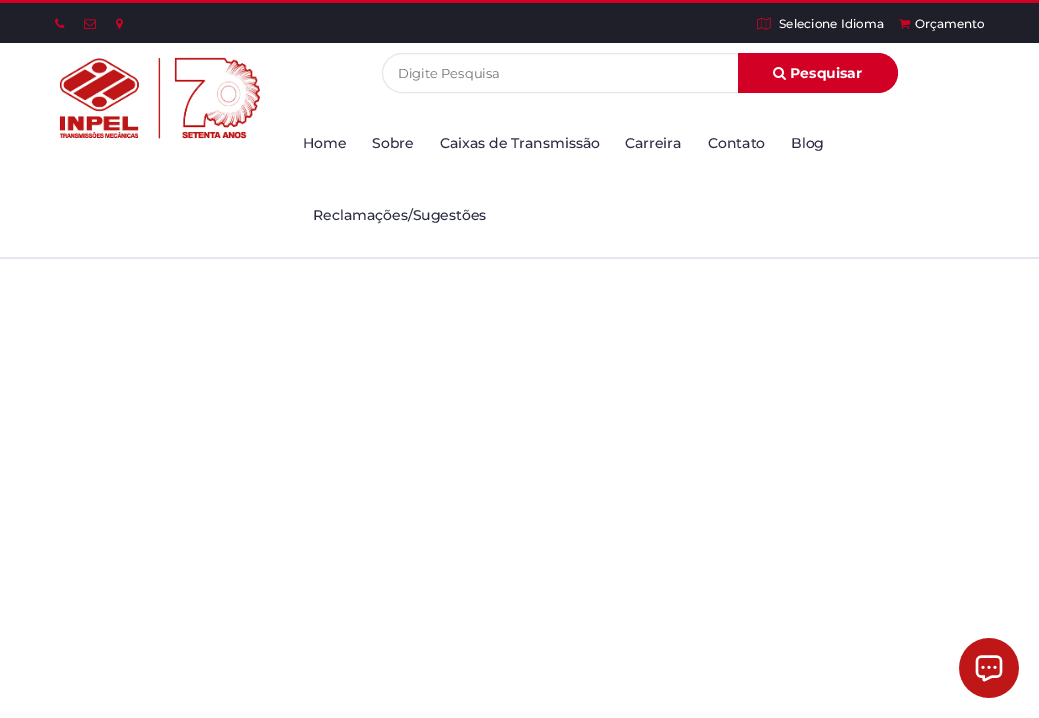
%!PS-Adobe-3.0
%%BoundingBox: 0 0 1039 718
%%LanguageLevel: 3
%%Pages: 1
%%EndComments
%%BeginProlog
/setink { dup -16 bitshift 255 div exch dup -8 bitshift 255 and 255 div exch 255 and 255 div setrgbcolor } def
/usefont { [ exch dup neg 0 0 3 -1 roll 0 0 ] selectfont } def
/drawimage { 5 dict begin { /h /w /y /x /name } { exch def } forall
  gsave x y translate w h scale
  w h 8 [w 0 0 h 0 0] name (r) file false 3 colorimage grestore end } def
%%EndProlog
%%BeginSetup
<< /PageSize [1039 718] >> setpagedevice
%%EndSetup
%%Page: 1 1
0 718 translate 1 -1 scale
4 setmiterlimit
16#FFFFFF setink
0 0 1039 718 rectfill
[
    [0 0 1039 3 16#D10024]
    [0 257 1039 2 16#E4E7ED]
    [0 3 1039 40 16#1E1F29]
] { aload pop setink rectfill } forall
(img1.raw) 55 18 10 10 drawimage
(img2.raw) 84 19 12 10 drawimage
(img3.raw) 116 18 7 11 drawimage
(img4.raw) 757 17 14 13 drawimage
/Montserrat-Medium 12 usefont
16#FFFFFF setink
779 28 moveto (Selecione Idioma) show
(img5.raw) 899 19 12 10 drawimage
915 28 moveto (Orçamento) show
(img6.raw) 59 57 201 82 drawimage
16#E4E7ED setink
402 53.5 moveto 741.5 53.5 lineto 741.5 92.5 lineto 402 92.5 lineto 391 92.5 382.5 84 382.5 73 curveto 382.5 62 391 53.5 402 53.5 curveto closepath stroke
/Montserrat-Regular 13 usefont
16#757575 setink
398 78 moveto (Digite Pesquisa) show
16#D10024 setink
738 53 moveto 878 53 lineto 889 53 898 62 898 73 curveto 898 84 889 93 878 93 curveto 738 93 lineto closepath fill
(img7.raw) 773 67 13 13 drawimage
/Montserrat-Bold 14 usefont
16#FFFFFF setink
790 78 moveto (Pesquisar) show
/Montserrat-Medium 14 usefont
16#2B2D42 setink
[
    [(Home) 303 148]
    [(Sobre) 372 148]
    [(Caixas de Transmissão) 440 148]
    [(Carreira) 625 148]
    [(Contato) 708 148]
    [(Blog) 791 148]
    [(Reclamações/Sugestões) 313 220]
] { aload pop moveto show } forall
(img8.raw) 959 638 60 60 drawimage
showpage
%%EOF
